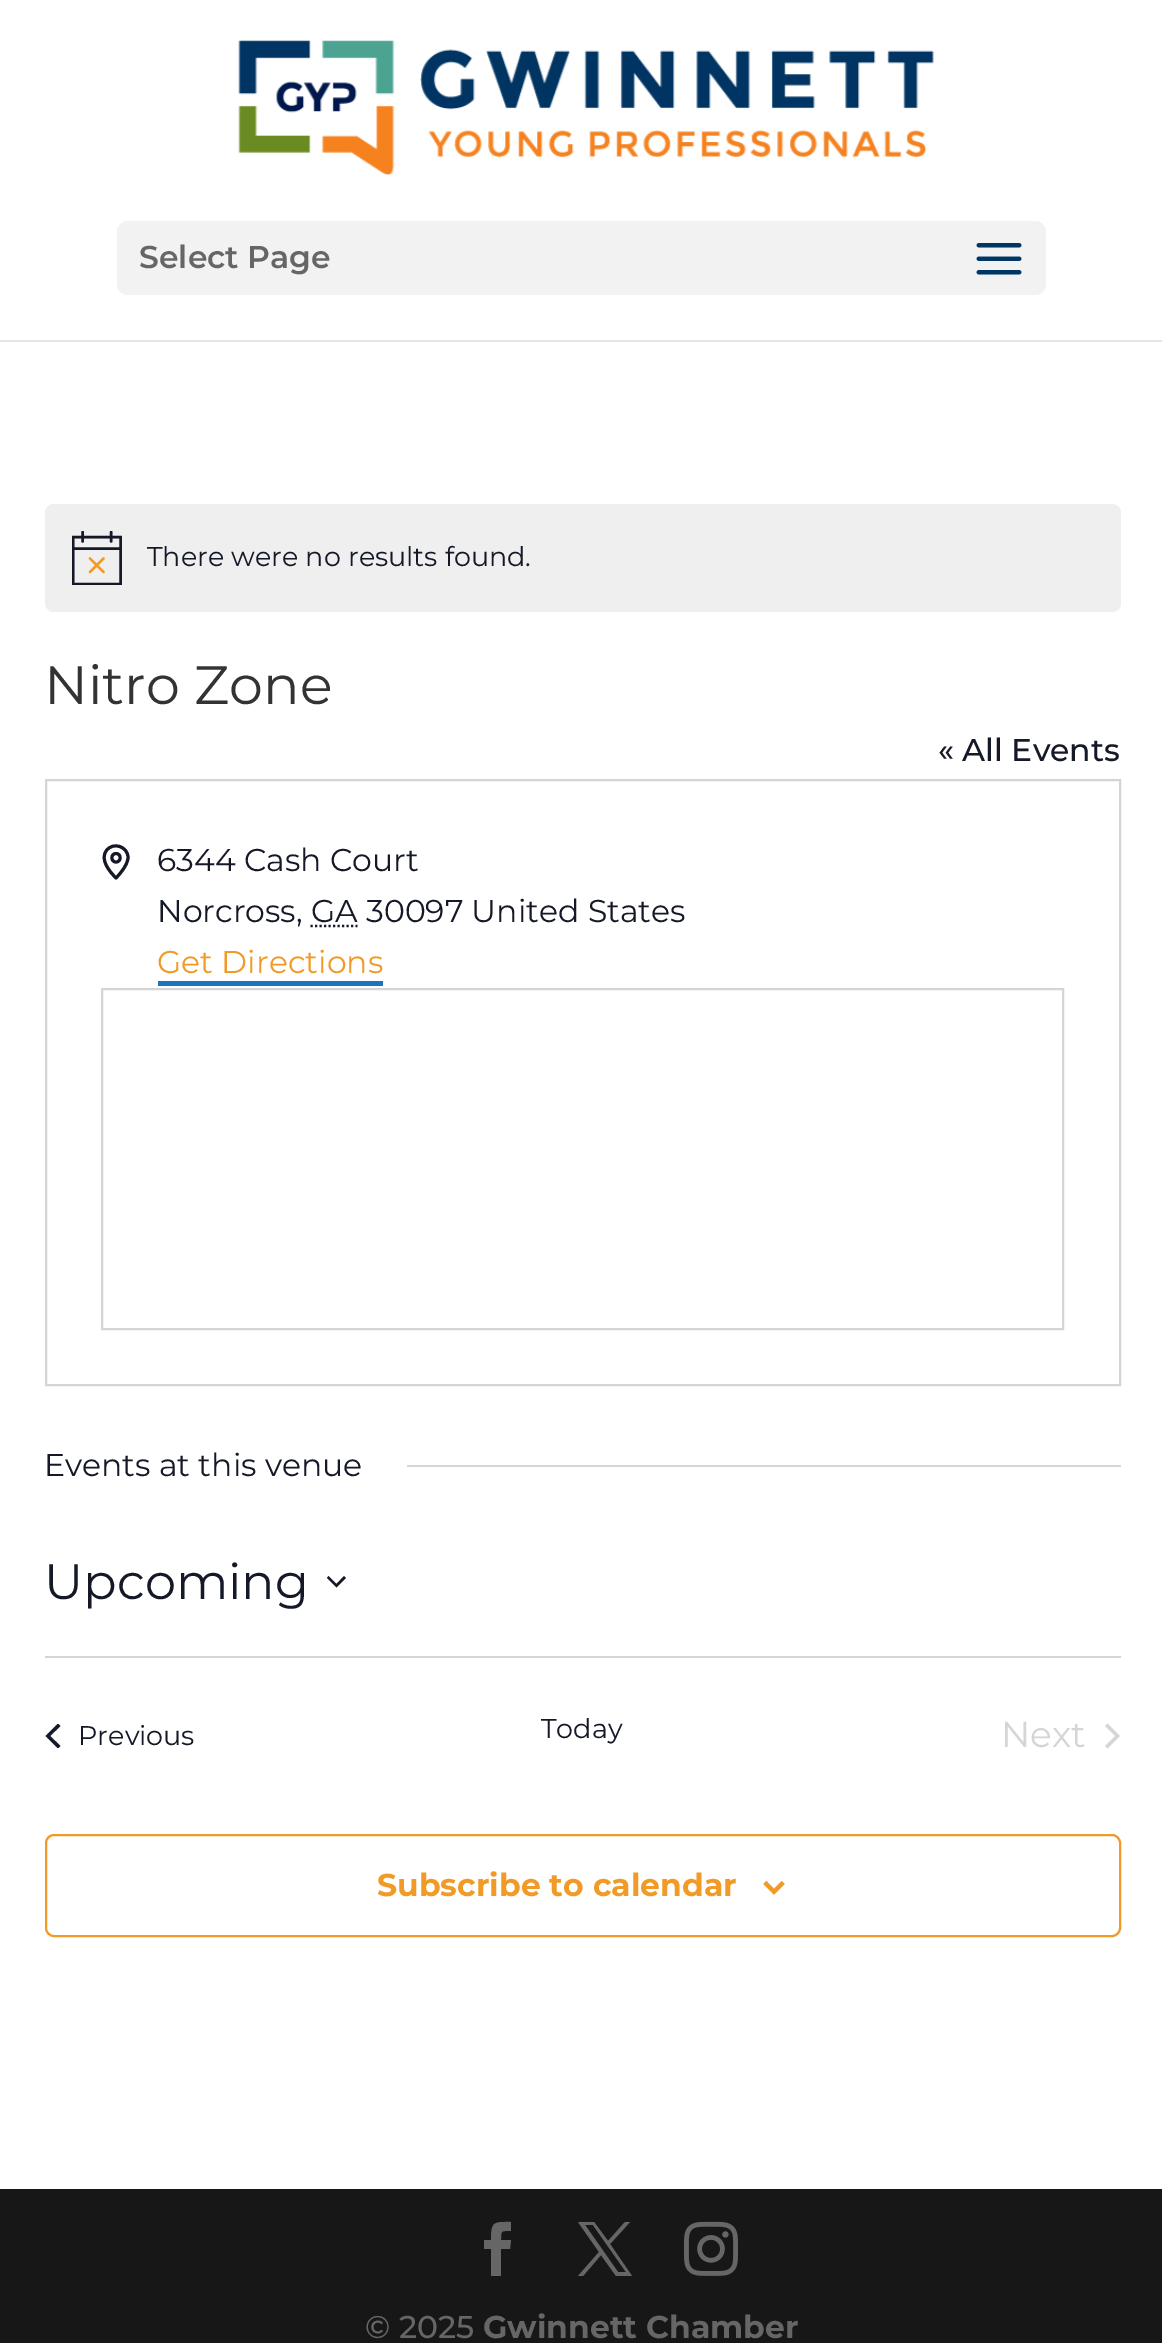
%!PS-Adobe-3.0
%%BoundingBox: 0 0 1162 2343
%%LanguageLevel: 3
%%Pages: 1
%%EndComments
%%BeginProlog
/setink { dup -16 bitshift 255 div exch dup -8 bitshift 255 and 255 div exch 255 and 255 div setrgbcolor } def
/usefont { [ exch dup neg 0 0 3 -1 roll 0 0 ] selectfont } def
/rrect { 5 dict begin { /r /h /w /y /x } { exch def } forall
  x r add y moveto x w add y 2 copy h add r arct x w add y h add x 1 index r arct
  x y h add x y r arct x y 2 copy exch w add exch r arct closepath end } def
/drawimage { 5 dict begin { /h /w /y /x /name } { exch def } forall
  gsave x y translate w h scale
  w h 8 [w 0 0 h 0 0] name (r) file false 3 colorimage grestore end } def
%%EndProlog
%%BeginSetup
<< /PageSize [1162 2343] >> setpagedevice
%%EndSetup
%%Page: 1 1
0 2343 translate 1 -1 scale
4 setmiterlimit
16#FFFFFF setink
0 0 1162 2343 rectfill
16#E6E6E6 setink
0 340 1162 2 rectfill
(img1.raw) 238 40 696 135 drawimage
16#F2F2F2 setink
117 221 929 74 11 rrect fill
/Montserrat-SemiBold 31.5 usefont
16#666666 setink
139 268 moveto (Select Page) show
(img2.raw) 976 243 46 32 drawimage
16#EFEFF0 setink
45 504 1076 108 9 rrect fill
gsave
72 531 50 54 rectclip
16#141827 setink
2.4 setlinewidth
73 537 moveto 120.5 537 lineto 120.5 584 lineto 73 584 lineto closepath stroke
grestore
16#F19B26 setink
2.4 setlinewidth
1 setlinecap
90 558.5 moveto 103.5 572 lineto 103.5 558.5 moveto 90 572 lineto stroke
gsave
72 531 50 54 rectclip
16#141827 setink
82.5 532 moveto 82.5 541.5 lineto 111 532 moveto 111 541.5 lineto stroke
2 setlinecap
73 548.5 moveto 120.5 548.5 lineto stroke
grestore
/Montserrat-Regular 27 usefont
16#141827 setink
147 566 moveto (There were no results found.) show
/Montserrat-Regular 54 usefont
16#333333 setink
44 704 moveto (Nitro Zone) show
/Montserrat-Medium 31.5 usefont
16#141827 setink
938 761 moveto (« All Events) show
16#D5D5D5 setink
2 setlinewidth
0 setlinecap
46 780 1074 605 rectstroke
16#141827 setink
3 setlinewidth
1 setlinecap
1 setlinejoin
128 857.5 moveto 128 866 116 878 116 878 curveto 109.5 871.5 99.5 859.5 106.5 850.5 curveto 113 841.5 128 846.5 128 857.5 curveto closepath 116 862 moveto 121.5 862 121.5 853.5 116 853.5 curveto 110.5 853.5 110.5 862 116 862 curveto closepath stroke
/Montserrat-Regular 31.5 usefont
157 871 moveto (6344 Cash Court) show
157 922 moveto (Norcross, GA 30097 United States) show
2.2 setlinewidth
0 setlinecap
0 setlinejoin
[2.25 2.25] 0 setdash
310.5 926 moveto 357.5 926 lineto stroke
16#F19B26 setink
157 973 moveto (Get Directions) show
16#1E73BE setink
158 981 225 5 rectfill
16#D5D5D5 setink
2 setlinewidth
[] 0 setdash
102 989 961 340 rectstroke
16#141827 setink
44 1476 moveto (Events at this venue) show
16#D5D5D5 setink
407 1465 714 2 rectfill
/Montserrat-Regular 49.5 usefont
16#141827 setink
44 1599 moveto (Upcoming) show
328.5 1576 moveto 336.5 1584 lineto 344 1576 lineto 346 1578 lineto 336.5 1587.5 lineto 327 1578 lineto closepath eofill
16#D5D5D5 setink
45 1656 1076 2 rectfill
gsave
45 1724 16 24 rectclip
16#141827 setink
60.5 1746 moveto 58 1748.5 lineto 45.5 1736 lineto 58 1723.5 lineto 60.5 1726 lineto 50 1736 lineto closepath fill
grestore
/Montserrat-Regular 27 usefont
16#141827 setink
78 1745 moveto (Previous) show
541 1738 moveto (Today) show
/Montserrat-Regular 36 usefont
16#D5D5D5 setink
1001 1747 moveto (Next) show
1105 1726 moveto 1107.5 1723.5 lineto 1120 1736 lineto 1107.5 1748.5 lineto 1105 1746 lineto 1115.5 1736 lineto closepath fill
16#F19B26 setink
46 1835 1074 101 8 rrect stroke
/Montserrat-Bold 31.5 usefont
377 1896 moveto (Subscribe to calendar) show
(img3.raw) 763 1881 22 14 drawimage
16#171717 setink
0 2189 1162 154 rectfill
16#666666 setink
491 2276 moveto 501 2276 lineto 501 2249 lineto 510 2249 lineto 511 2240 lineto 501 2240 lineto 501 2230 501 2231 511 2231 curveto 511 2222 lineto 494 2222 491 2221 491 2240 curveto 484 2240 lineto 484 2249 lineto 491 2249 lineto closepath fill
578 2222 moveto 599 2252 lineto 578 2276 lineto 583 2276 lineto 601 2255 lineto 616 2276 lineto 632 2276 lineto 610 2244 lineto 630 2222 lineto 625 2222 lineto 608 2241 lineto 594 2222 lineto closepath 585 2225 moveto 593 2225 lineto 626 2272 lineto 618 2272 lineto closepath fill
(img4.raw) 684 2221 54 55 drawimage
/Montserrat-Medium 31.5 usefont
365 2338 moveto (© 2025) show
/Montserrat-Bold 31.5 usefont
483 2338 moveto (Gwinnett Chamber) show
showpage
%%EOF
